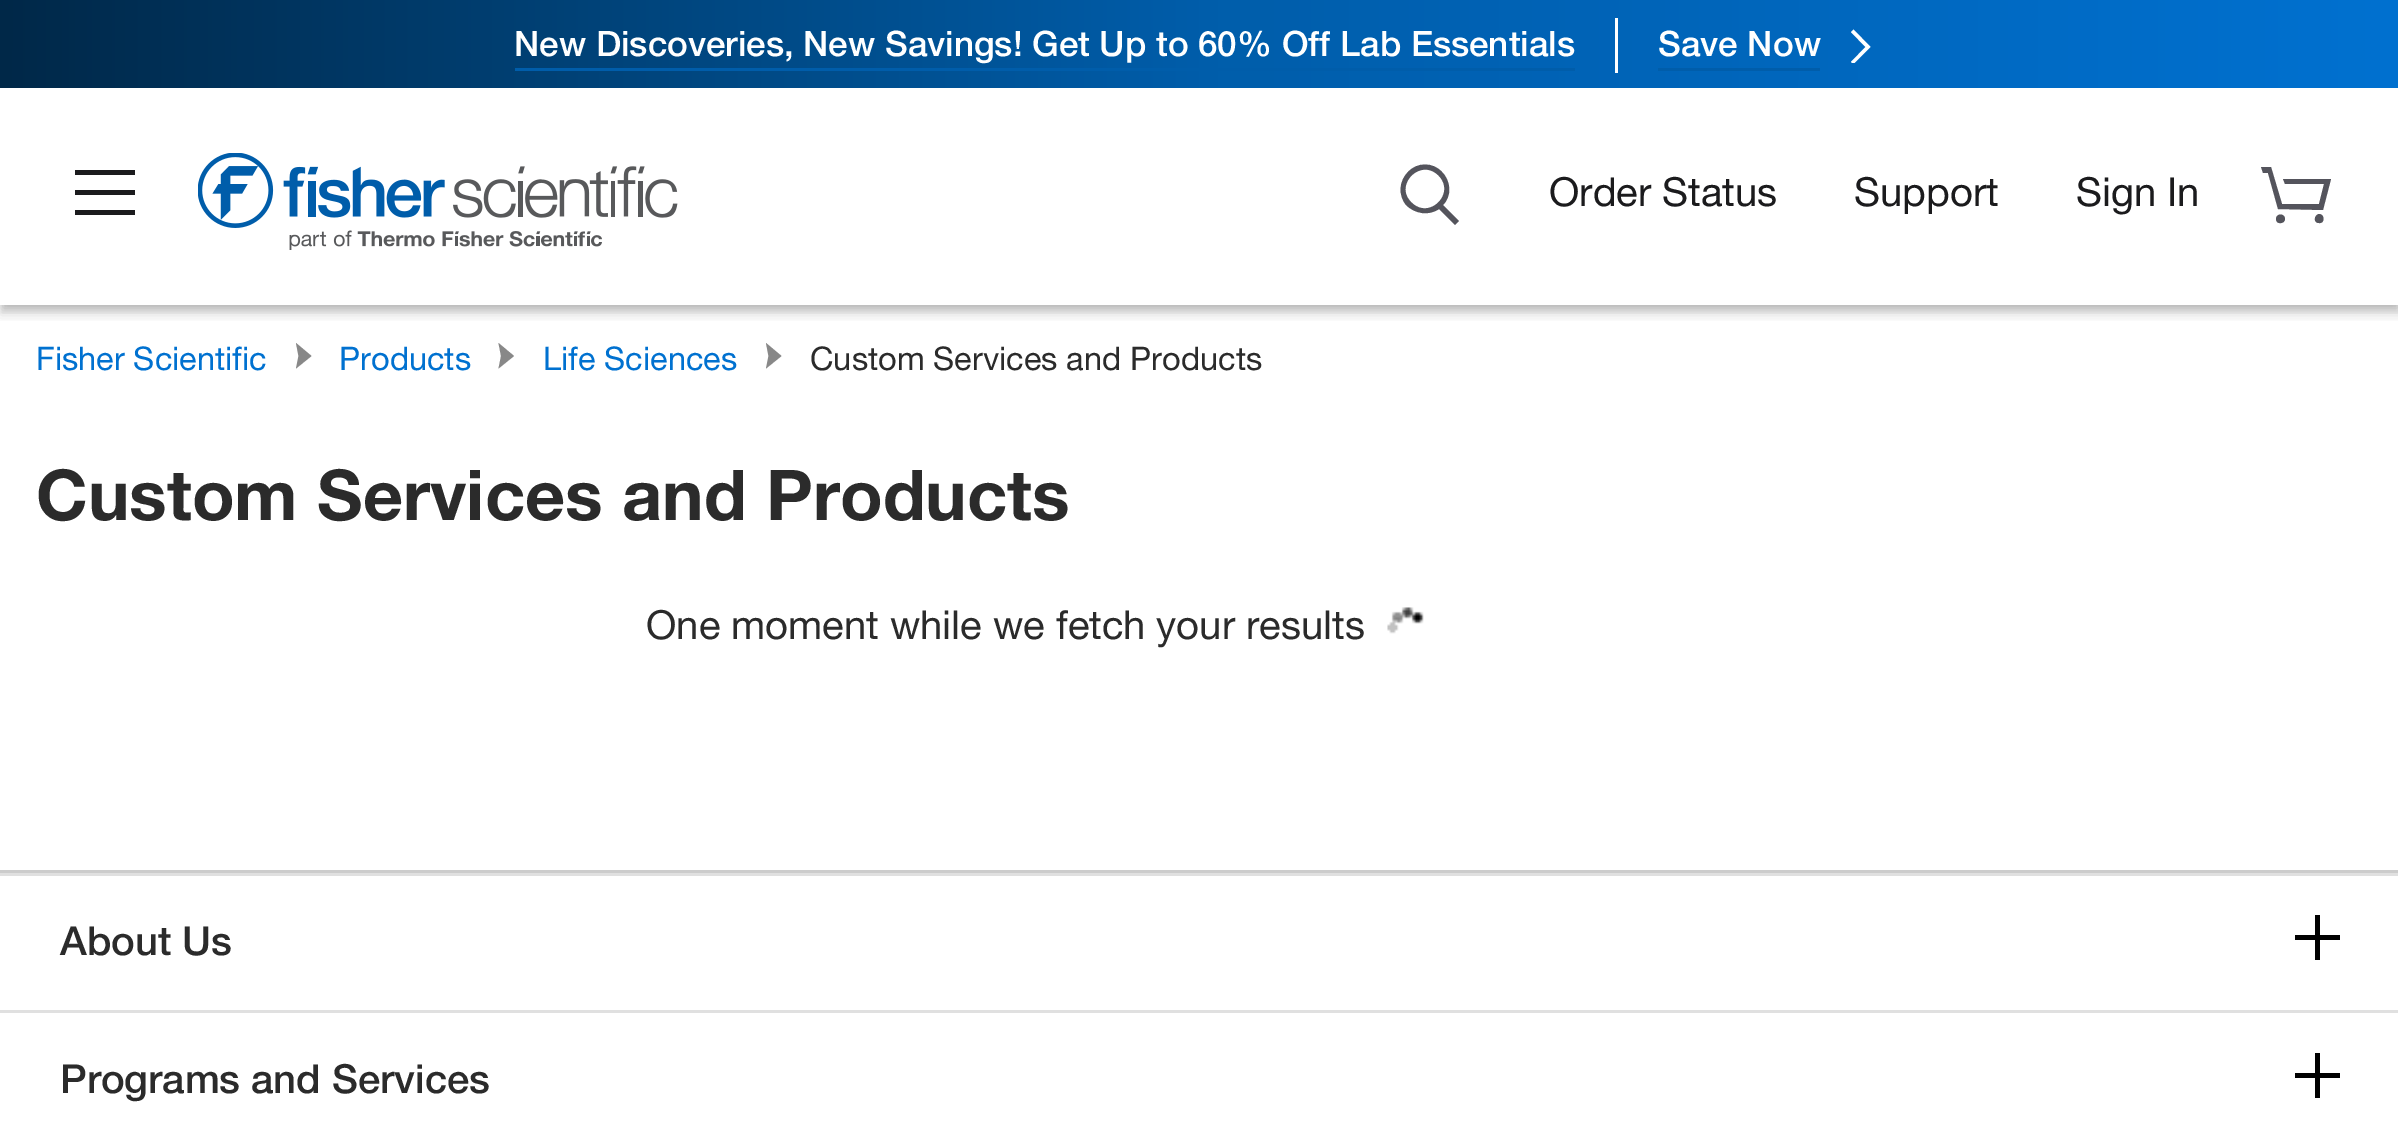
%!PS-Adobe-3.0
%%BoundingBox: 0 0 2398 1134
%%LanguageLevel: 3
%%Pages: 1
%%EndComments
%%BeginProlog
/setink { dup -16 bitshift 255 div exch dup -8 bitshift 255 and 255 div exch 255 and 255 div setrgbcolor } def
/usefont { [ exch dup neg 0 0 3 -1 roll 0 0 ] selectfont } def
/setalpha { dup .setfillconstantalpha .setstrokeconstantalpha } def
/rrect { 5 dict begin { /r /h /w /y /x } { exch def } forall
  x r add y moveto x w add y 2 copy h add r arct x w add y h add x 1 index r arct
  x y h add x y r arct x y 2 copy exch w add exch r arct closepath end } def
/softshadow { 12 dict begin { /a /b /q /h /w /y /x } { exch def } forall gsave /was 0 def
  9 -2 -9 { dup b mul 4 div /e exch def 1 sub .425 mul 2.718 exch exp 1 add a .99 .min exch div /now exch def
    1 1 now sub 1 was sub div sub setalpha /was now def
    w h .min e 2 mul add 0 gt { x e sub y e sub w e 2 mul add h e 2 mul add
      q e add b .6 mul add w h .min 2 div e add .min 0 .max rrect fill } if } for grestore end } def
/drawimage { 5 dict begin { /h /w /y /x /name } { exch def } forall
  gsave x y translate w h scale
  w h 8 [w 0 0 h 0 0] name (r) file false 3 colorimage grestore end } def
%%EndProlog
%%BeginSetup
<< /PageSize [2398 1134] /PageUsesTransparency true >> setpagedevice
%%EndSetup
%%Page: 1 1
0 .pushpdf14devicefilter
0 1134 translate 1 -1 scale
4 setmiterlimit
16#FFFFFF setink
0 0 2398 1134 rectfill
gsave 0 0 moveto 2398 0 lineto 2398 88 lineto 0 88 lineto closepath clip newpath
<< /ShadingType 2 /ColorSpace /DeviceRGB /Coords [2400 44 0 43] /Extend [true true] /Function << /FunctionType 3 /Domain [0 1] /Functions [<< /FunctionType 2 /Domain [0 1] /C0 [0 0.443 0.816] /C1 [0 0.365 0.667] /N 1 >> << /FunctionType 2 /Domain [0 1] /C0 [0 0.365 0.667] /C1 [0 0.157 0.282] /N 1 >>] /Bounds [0.5] /Encode [0 1 0 1] >> >> shfill grestore
/HelveticaNeue-Medium 35 usefont
514 56 moveto (New Discoveries, New Savings! Get Up to 60% Off Lab Essentials) show
16#005DAA setink
515 68 1060 3 rectfill
16#FFFFFF setink
1615 18 3 55 rectfill
1658 56 moveto (Save Now) show
16#005DAA setink
1658 68 162 3 rectfill
gsave
1840 18 45 45 rectclip
16#FFFFFF setink
1851 32 moveto 1853.5 29.5 lineto 1870.5 47 lineto 1853.5 64 lineto 1851 62 lineto 1865.5 47 lineto closepath eofill
grestore
gsave
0 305 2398 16 rectclip
16#000000 setink
0 98 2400 217 0 6 0.14 softshadow
grestore
gsave
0 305 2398 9 rectclip
16#000000 setink
3 95 2395 213 0 5 0.2 softshadow
grestore
[
    [75 190 60 5 16#1B1B1D]
    [75 170 60 5 16#1B1B1D]
    [75 210 60 5 16#1B1B1D]
] { aload pop setink rectfill } forall
(img1.raw) 198 153 480 97 drawimage
16#54545C setink
1459 221 moveto 1443 205 lineto 1452 196 1451 181 1442 172 curveto 1433 162 1417 162 1408 172 curveto 1399 181 1398 195 1406 205 curveto 1415 214 1429 216 1439 209 curveto 1455 225 lineto closepath 1411 202 moveto 1394 185 1420 158 1438 175 curveto 1457 193 1429 221 1411 202 curveto closepath fill
/HelveticaNeue-Regular 40 usefont
16#1B1B1D setink
[
    [(Order Status) 1549 206]
    [(Support) 1854 206]
    [(Sign In) 2076 206]
] { aload pop moveto show } forall
16#54545C setink
2285 219 moveto 2285 224 2276 225 2276 219 curveto 2276 213 2285 213 2285 219 curveto closepath 2319 214 moveto 2314 215 2313 223 2319 223 curveto 2325 224 2325 214 2319 214 curveto closepath 2323 210 moveto 2331 179 lineto 2283 179 lineto 2285 184 lineto 2324 184 lineto 2319 204 lineto 2282 204 lineto 2271 167 lineto 2261 167 lineto 2263 173 lineto 2268 173 lineto 2278 209 lineto closepath fill
/HelveticaNeue-Regular 32.5 usefont
16#0071D0 setink
36 370 moveto (Fisher Scientific) show
16#888888 setink
296 343 moveto 298.5 356 lineto 296 368.5 lineto 311.5 356 lineto closepath fill
16#0071D0 setink
339 370 moveto (Products) show
16#888888 setink
498.5 343 moveto 501 356 lineto 498.5 368.5 lineto 514 356 lineto closepath fill
16#0071D0 setink
543 370 moveto (Life Sciences) show
16#888888 setink
766 343 moveto 768.5 356 lineto 766 368.5 lineto 781.5 356 lineto closepath fill
16#2B2B2B setink
810 370 moveto (Custom Services and Products) show
/HelveticaNeue-Bold 70 usefont
36 520 moveto (Custom Services and Products) show
/HelveticaNeue-Regular 40 usefont
646 639 moveto (One moment while we fetch your results) show
(img2.raw) 1387 607 37 27 drawimage
[
    [0 870 2398 3 16#CCCCCC]
    [0 873 2398 3 16#E0E0E0]
    [0 1010 2398 3 16#E0E0E0]
] { aload pop setink rectfill } forall
/HelveticaNeue-Medium 40 usefont
16#2B2B2B setink
60 955 moveto (About Us) show
16#000000 setink
2315 915 5 45 rectfill
2295 935 45 5 rectfill
16#2B2B2B setink
60 1093 moveto (Programs and Services) show
16#000000 setink
2315 1053 5 45 rectfill
2295 1073 45 5 rectfill
.poppdf14devicefilter showpage
%%EOF
